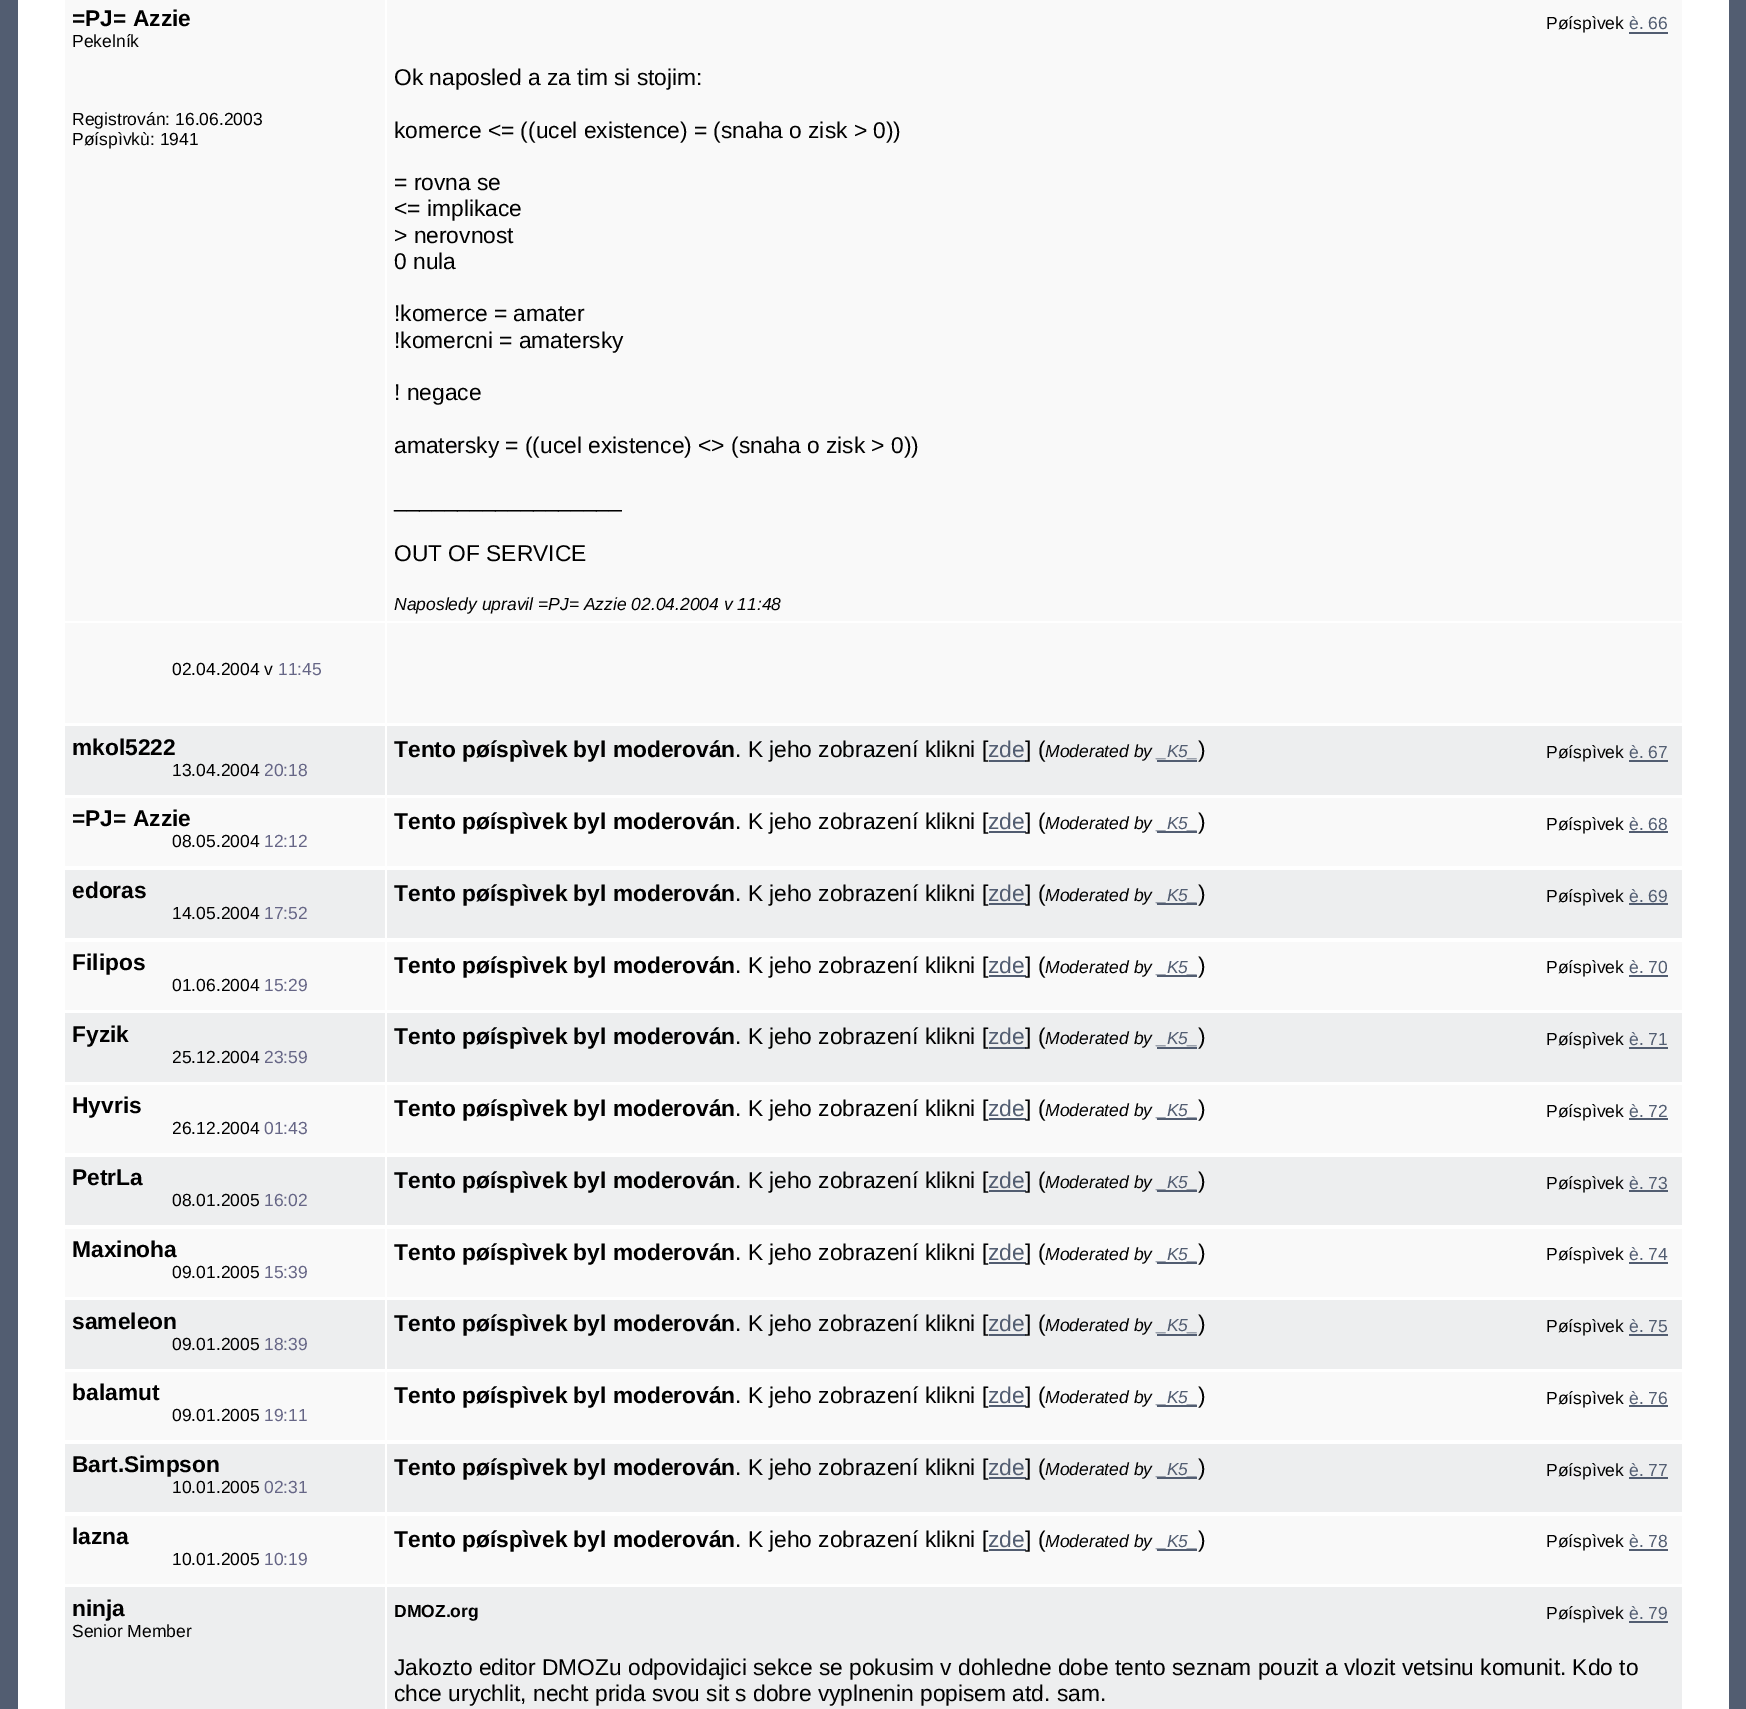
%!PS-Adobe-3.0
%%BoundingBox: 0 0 1746 1709
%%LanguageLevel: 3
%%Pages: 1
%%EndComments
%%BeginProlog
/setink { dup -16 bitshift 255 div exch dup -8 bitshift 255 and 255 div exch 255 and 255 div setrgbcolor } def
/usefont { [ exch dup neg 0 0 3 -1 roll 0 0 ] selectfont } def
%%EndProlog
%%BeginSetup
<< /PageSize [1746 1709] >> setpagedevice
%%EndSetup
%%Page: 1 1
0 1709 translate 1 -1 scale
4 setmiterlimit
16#525D71 setink
0 0 1746 1709 rectfill
16#FFFFFF setink
18 0 1711 1709 rectfill
16#F9F9F9 setink
65 0 320 621 rectfill
/LiberationSans-Bold 22.75 usefont
16#000000 setink
72 26 moveto (=PJ= Azzie) show
/LiberationSans-Regular 17.5 usefont
[
    [(Pekelník) 72 47]
    [(Registrován: 16.06.2003) 72 125]
    [(Pøíspìvkù: 1941) 72 145]
] { aload pop moveto show } forall
16#F9F9F9 setink
387 0 1295 621 rectfill
16#000000 setink
1546 29 moveto (Pøíspìvek) show
16#525D71 setink
1629 29 moveto (è. 66) show
1629 32 39 2 rectfill
/LiberationSans-Regular 22.75 usefont
16#000000 setink
[
    [(Ok naposled a za tim si stojim:) 394 85]
    [(komerce <= \(\(ucel existence\) = \(snaha o zisk > 0\)\)) 394 138]
    [(= rovna se) 394 190]
    [(<= implikace) 394 216]
    [(> nerovnost) 394 243]
    [(0 nula) 394 269]
    [(!komerce = amater) 394 321]
    [(!komercni = amatersky) 394 348]
    [(! negace) 394 400]
    [(amatersky = \(\(ucel existence\) <> \(snaha o zisk > 0\)\)) 394 453]
    [(__________________) 394 507]
    [(OUT OF SERVICE) 394 561]
] { aload pop moveto show } forall
/LiberationSans-Italic 17.5 usefont
394 610 moveto (Naposledy upravil =PJ= Azzie 02.04.2004 v 11:48) show
16#F9F9F9 setink
65 623 320 100 rectfill
/LiberationSans-Regular 17.5 usefont
16#000000 setink
172 675 moveto (02.04.2004 v) show
16#666686 setink
278 675 moveto (11:45) show
16#F9F9F9 setink
387 623 1295 100 rectfill
16#EDEEEF setink
65 726 320 69 rectfill
/LiberationSans-Bold 22.75 usefont
16#000000 setink
72 755 moveto (mkol5222) show
/LiberationSans-Regular 17.5 usefont
172 776 moveto (13.04.2004) show
16#666686 setink
264 776 moveto (20:18) show
16#EDEEEF setink
387 726 1295 69 rectfill
/LiberationSans-Bold 22.75 usefont
16#000000 setink
394 757 moveto (Tento pøíspìvek byl moderován) show
/LiberationSans-Regular 22.75 usefont
735 757 moveto (. K jeho zobrazení klikni [) show
16#525D71 setink
988 757 moveto (zde) show
989 760 37 2 rectfill
16#000000 setink
1025 757 moveto (] \() show
/LiberationSans-Italic 17.5 usefont
1045 757 moveto (Moderated by) show
16#525D71 setink
1157 757 moveto (_K5_) show
1157 760 40 2 rectfill
/LiberationSans-Regular 22.75 usefont
16#000000 setink
1198 757 moveto (\)) show
/LiberationSans-Regular 17.5 usefont
1546 758 moveto (Pøíspìvek) show
16#525D71 setink
1629 758 moveto (è. 67) show
1629 760 39 2 rectfill
16#F9F9F9 setink
65 798 320 68 rectfill
/LiberationSans-Bold 22.75 usefont
16#000000 setink
72 826 moveto (=PJ= Azzie) show
/LiberationSans-Regular 17.5 usefont
172 847 moveto (08.05.2004) show
16#666686 setink
264 847 moveto (12:12) show
16#F9F9F9 setink
387 798 1295 68 rectfill
/LiberationSans-Bold 22.75 usefont
16#000000 setink
394 829 moveto (Tento pøíspìvek byl moderován) show
/LiberationSans-Regular 22.75 usefont
735 829 moveto (. K jeho zobrazení klikni [) show
16#525D71 setink
988 829 moveto (zde) show
989 831 37 2 rectfill
16#000000 setink
1025 829 moveto (] \() show
/LiberationSans-Italic 17.5 usefont
1045 829 moveto (Moderated by) show
16#525D71 setink
1157 831 40 2 rectfill
1157 829 moveto (_K5_) show
/LiberationSans-Regular 22.75 usefont
16#000000 setink
1198 829 moveto (\)) show
/LiberationSans-Regular 17.5 usefont
1546 830 moveto (Pøíspìvek) show
16#525D71 setink
1629 830 moveto (è. 68) show
1629 831 39 2 rectfill
16#EDEEEF setink
65 870 320 68 rectfill
/LiberationSans-Bold 22.75 usefont
16#000000 setink
72 898 moveto (edoras) show
/LiberationSans-Regular 17.5 usefont
172 919 moveto (14.05.2004) show
16#666686 setink
264 919 moveto (17:52) show
16#EDEEEF setink
387 870 1295 68 rectfill
/LiberationSans-Bold 22.75 usefont
16#000000 setink
394 901 moveto (Tento pøíspìvek byl moderován) show
/LiberationSans-Regular 22.75 usefont
735 901 moveto (. K jeho zobrazení klikni [) show
16#525D71 setink
988 901 moveto (zde) show
989 903 37 2 rectfill
16#000000 setink
1025 901 moveto (] \() show
/LiberationSans-Italic 17.5 usefont
1045 901 moveto (Moderated by) show
16#525D71 setink
1157 903 40 2 rectfill
1157 901 moveto (_K5_) show
/LiberationSans-Regular 22.75 usefont
16#000000 setink
1198 901 moveto (\)) show
/LiberationSans-Regular 17.5 usefont
1546 902 moveto (Pøíspìvek) show
16#525D71 setink
1629 902 moveto (è. 69) show
1629 903 39 2 rectfill
16#F9F9F9 setink
65 942 320 68 rectfill
/LiberationSans-Bold 22.75 usefont
16#000000 setink
72 970 moveto (Filipos) show
/LiberationSans-Regular 17.5 usefont
172 991 moveto (01.06.2004) show
16#666686 setink
264 991 moveto (15:29) show
16#F9F9F9 setink
387 942 1295 68 rectfill
/LiberationSans-Bold 22.75 usefont
16#000000 setink
394 973 moveto (Tento pøíspìvek byl moderován) show
/LiberationSans-Regular 22.75 usefont
735 973 moveto (. K jeho zobrazení klikni [) show
16#525D71 setink
988 973 moveto (zde) show
989 975 37 2 rectfill
16#000000 setink
1025 973 moveto (] \() show
/LiberationSans-Italic 17.5 usefont
1045 973 moveto (Moderated by) show
16#525D71 setink
1157 975 40 2 rectfill
1157 973 moveto (_K5_) show
/LiberationSans-Regular 22.75 usefont
16#000000 setink
1198 973 moveto (\)) show
/LiberationSans-Regular 17.5 usefont
1546 973 moveto (Pøíspìvek) show
16#525D71 setink
1629 973 moveto (è. 70) show
1629 975 39 2 rectfill
16#EDEEEF setink
65 1013 320 69 rectfill
/LiberationSans-Bold 22.75 usefont
16#000000 setink
72 1042 moveto (Fyzik) show
/LiberationSans-Regular 17.5 usefont
172 1063 moveto (25.12.2004) show
16#666686 setink
264 1063 moveto (23:59) show
16#EDEEEF setink
387 1013 1295 69 rectfill
/LiberationSans-Bold 22.75 usefont
16#000000 setink
394 1044 moveto (Tento pøíspìvek byl moderován) show
/LiberationSans-Regular 22.75 usefont
735 1044 moveto (. K jeho zobrazení klikni [) show
16#525D71 setink
988 1044 moveto (zde) show
989 1047 37 2 rectfill
16#000000 setink
1025 1044 moveto (] \() show
/LiberationSans-Italic 17.5 usefont
1045 1044 moveto (Moderated by) show
16#525D71 setink
1157 1044 moveto (_K5_) show
1157 1047 40 2 rectfill
/LiberationSans-Regular 22.75 usefont
16#000000 setink
1198 1044 moveto (\)) show
/LiberationSans-Regular 17.5 usefont
1546 1045 moveto (Pøíspìvek) show
16#525D71 setink
1629 1045 moveto (è. 71) show
1629 1047 39 2 rectfill
16#F9F9F9 setink
65 1085 320 68 rectfill
/LiberationSans-Bold 22.75 usefont
16#000000 setink
72 1113 moveto (Hyvris) show
/LiberationSans-Regular 17.5 usefont
172 1134 moveto (26.12.2004) show
16#666686 setink
264 1134 moveto (01:43) show
16#F9F9F9 setink
387 1085 1295 68 rectfill
/LiberationSans-Bold 22.75 usefont
16#000000 setink
394 1116 moveto (Tento pøíspìvek byl moderován) show
/LiberationSans-Regular 22.75 usefont
735 1116 moveto (. K jeho zobrazení klikni [) show
16#525D71 setink
988 1116 moveto (zde) show
989 1118 37 2 rectfill
16#000000 setink
1025 1116 moveto (] \() show
/LiberationSans-Italic 17.5 usefont
1045 1116 moveto (Moderated by) show
16#525D71 setink
1157 1118 40 2 rectfill
1157 1116 moveto (_K5_) show
/LiberationSans-Regular 22.75 usefont
16#000000 setink
1198 1116 moveto (\)) show
/LiberationSans-Regular 17.5 usefont
1546 1117 moveto (Pøíspìvek) show
16#525D71 setink
1629 1117 moveto (è. 72) show
1629 1118 39 2 rectfill
16#EDEEEF setink
65 1157 320 68 rectfill
/LiberationSans-Bold 22.75 usefont
16#000000 setink
72 1185 moveto (PetrLa) show
/LiberationSans-Regular 17.5 usefont
172 1206 moveto (08.01.2005) show
16#666686 setink
264 1206 moveto (16:02) show
16#EDEEEF setink
387 1157 1295 68 rectfill
/LiberationSans-Bold 22.75 usefont
16#000000 setink
394 1188 moveto (Tento pøíspìvek byl moderován) show
/LiberationSans-Regular 22.75 usefont
735 1188 moveto (. K jeho zobrazení klikni [) show
16#525D71 setink
988 1188 moveto (zde) show
989 1190 37 2 rectfill
16#000000 setink
1025 1188 moveto (] \() show
/LiberationSans-Italic 17.5 usefont
1045 1188 moveto (Moderated by) show
16#525D71 setink
1157 1190 40 2 rectfill
1157 1188 moveto (_K5_) show
/LiberationSans-Regular 22.75 usefont
16#000000 setink
1198 1188 moveto (\)) show
/LiberationSans-Regular 17.5 usefont
1546 1189 moveto (Pøíspìvek) show
16#525D71 setink
1629 1189 moveto (è. 73) show
1629 1190 39 2 rectfill
16#F9F9F9 setink
65 1229 320 68 rectfill
/LiberationSans-Bold 22.75 usefont
16#000000 setink
72 1257 moveto (Maxinoha) show
/LiberationSans-Regular 17.5 usefont
172 1278 moveto (09.01.2005) show
16#666686 setink
264 1278 moveto (15:39) show
16#F9F9F9 setink
387 1229 1295 68 rectfill
/LiberationSans-Bold 22.75 usefont
16#000000 setink
394 1260 moveto (Tento pøíspìvek byl moderován) show
/LiberationSans-Regular 22.75 usefont
735 1260 moveto (. K jeho zobrazení klikni [) show
16#525D71 setink
988 1260 moveto (zde) show
989 1262 37 2 rectfill
16#000000 setink
1025 1260 moveto (] \() show
/LiberationSans-Italic 17.5 usefont
1045 1260 moveto (Moderated by) show
16#525D71 setink
1157 1262 40 2 rectfill
1157 1260 moveto (_K5_) show
/LiberationSans-Regular 22.75 usefont
16#000000 setink
1198 1260 moveto (\)) show
/LiberationSans-Regular 17.5 usefont
1546 1260 moveto (Pøíspìvek) show
16#525D71 setink
1629 1260 moveto (è. 74) show
1629 1262 39 2 rectfill
16#EDEEEF setink
65 1300 320 69 rectfill
/LiberationSans-Bold 22.75 usefont
16#000000 setink
72 1329 moveto (sameleon) show
/LiberationSans-Regular 17.5 usefont
172 1350 moveto (09.01.2005) show
16#666686 setink
264 1350 moveto (18:39) show
16#EDEEEF setink
387 1300 1295 69 rectfill
/LiberationSans-Bold 22.75 usefont
16#000000 setink
394 1331 moveto (Tento pøíspìvek byl moderován) show
/LiberationSans-Regular 22.75 usefont
735 1331 moveto (. K jeho zobrazení klikni [) show
16#525D71 setink
988 1331 moveto (zde) show
989 1334 37 2 rectfill
16#000000 setink
1025 1331 moveto (] \() show
/LiberationSans-Italic 17.5 usefont
1045 1331 moveto (Moderated by) show
16#525D71 setink
1157 1331 moveto (_K5_) show
1157 1334 40 2 rectfill
/LiberationSans-Regular 22.75 usefont
16#000000 setink
1198 1331 moveto (\)) show
/LiberationSans-Regular 17.5 usefont
1546 1332 moveto (Pøíspìvek) show
16#525D71 setink
1629 1332 moveto (è. 75) show
1629 1334 39 2 rectfill
16#F9F9F9 setink
65 1372 320 68 rectfill
/LiberationSans-Bold 22.75 usefont
16#000000 setink
72 1400 moveto (balamut) show
/LiberationSans-Regular 17.5 usefont
172 1421 moveto (09.01.2005) show
16#666686 setink
264 1421 moveto (19:11) show
16#F9F9F9 setink
387 1372 1295 68 rectfill
/LiberationSans-Bold 22.75 usefont
16#000000 setink
394 1403 moveto (Tento pøíspìvek byl moderován) show
/LiberationSans-Regular 22.75 usefont
735 1403 moveto (. K jeho zobrazení klikni [) show
16#525D71 setink
988 1403 moveto (zde) show
989 1405 37 2 rectfill
16#000000 setink
1025 1403 moveto (] \() show
/LiberationSans-Italic 17.5 usefont
1045 1403 moveto (Moderated by) show
16#525D71 setink
1157 1405 40 2 rectfill
1157 1403 moveto (_K5_) show
/LiberationSans-Regular 22.75 usefont
16#000000 setink
1198 1403 moveto (\)) show
/LiberationSans-Regular 17.5 usefont
1546 1404 moveto (Pøíspìvek) show
16#525D71 setink
1629 1404 moveto (è. 76) show
1629 1405 39 2 rectfill
16#EDEEEF setink
65 1444 320 68 rectfill
/LiberationSans-Bold 22.75 usefont
16#000000 setink
72 1472 moveto (Bart.Simpson) show
/LiberationSans-Regular 17.5 usefont
172 1493 moveto (10.01.2005) show
16#666686 setink
264 1493 moveto (02:31) show
16#EDEEEF setink
387 1444 1295 68 rectfill
/LiberationSans-Bold 22.75 usefont
16#000000 setink
394 1475 moveto (Tento pøíspìvek byl moderován) show
/LiberationSans-Regular 22.75 usefont
735 1475 moveto (. K jeho zobrazení klikni [) show
16#525D71 setink
988 1475 moveto (zde) show
989 1477 37 2 rectfill
16#000000 setink
1025 1475 moveto (] \() show
/LiberationSans-Italic 17.5 usefont
1045 1475 moveto (Moderated by) show
16#525D71 setink
1157 1477 40 2 rectfill
1157 1475 moveto (_K5_) show
/LiberationSans-Regular 22.75 usefont
16#000000 setink
1198 1475 moveto (\)) show
/LiberationSans-Regular 17.5 usefont
1546 1476 moveto (Pøíspìvek) show
16#525D71 setink
1629 1476 moveto (è. 77) show
1629 1477 39 2 rectfill
16#F9F9F9 setink
65 1516 320 68 rectfill
/LiberationSans-Bold 22.75 usefont
16#000000 setink
72 1544 moveto (lazna) show
/LiberationSans-Regular 17.5 usefont
172 1565 moveto (10.01.2005) show
16#666686 setink
264 1565 moveto (10:19) show
16#F9F9F9 setink
387 1516 1295 68 rectfill
/LiberationSans-Bold 22.75 usefont
16#000000 setink
394 1547 moveto (Tento pøíspìvek byl moderován) show
/LiberationSans-Regular 22.75 usefont
735 1547 moveto (. K jeho zobrazení klikni [) show
16#525D71 setink
988 1547 moveto (zde) show
989 1549 37 2 rectfill
16#000000 setink
1025 1547 moveto (] \() show
/LiberationSans-Italic 17.5 usefont
1045 1547 moveto (Moderated by) show
16#525D71 setink
1157 1549 40 2 rectfill
1157 1547 moveto (_K5_) show
/LiberationSans-Regular 22.75 usefont
16#000000 setink
1198 1547 moveto (\)) show
/LiberationSans-Regular 17.5 usefont
1546 1547 moveto (Pøíspìvek) show
16#525D71 setink
1629 1547 moveto (è. 78) show
1629 1549 39 2 rectfill
16#EDEEEF setink
65 1587 320 122 rectfill
/LiberationSans-Bold 22.75 usefont
16#000000 setink
72 1616 moveto (ninja) show
/LiberationSans-Regular 17.5 usefont
72 1637 moveto (Senior Member) show
16#EDEEEF setink
387 1587 1295 122 rectfill
/LiberationSans-Bold 17.5 usefont
16#000000 setink
394 1617 moveto (DMOZ.org) show
/LiberationSans-Regular 17.5 usefont
1546 1619 moveto (Pøíspìvek) show
16#525D71 setink
1629 1619 moveto (è. 79) show
1629 1621 39 2 rectfill
/LiberationSans-Regular 22.75 usefont
16#000000 setink
394 1675 moveto (Jakozto editor DMOZu odpovidajici sekce se pokusim v dohledne dobe tento seznam pouzit a vlozit vetsinu komunit. Kdo to) show
394 1701 moveto (chce urychlit, necht prida svou sit s dobre vyplnenin popisem atd. sam.) show
showpage
%%EOF
